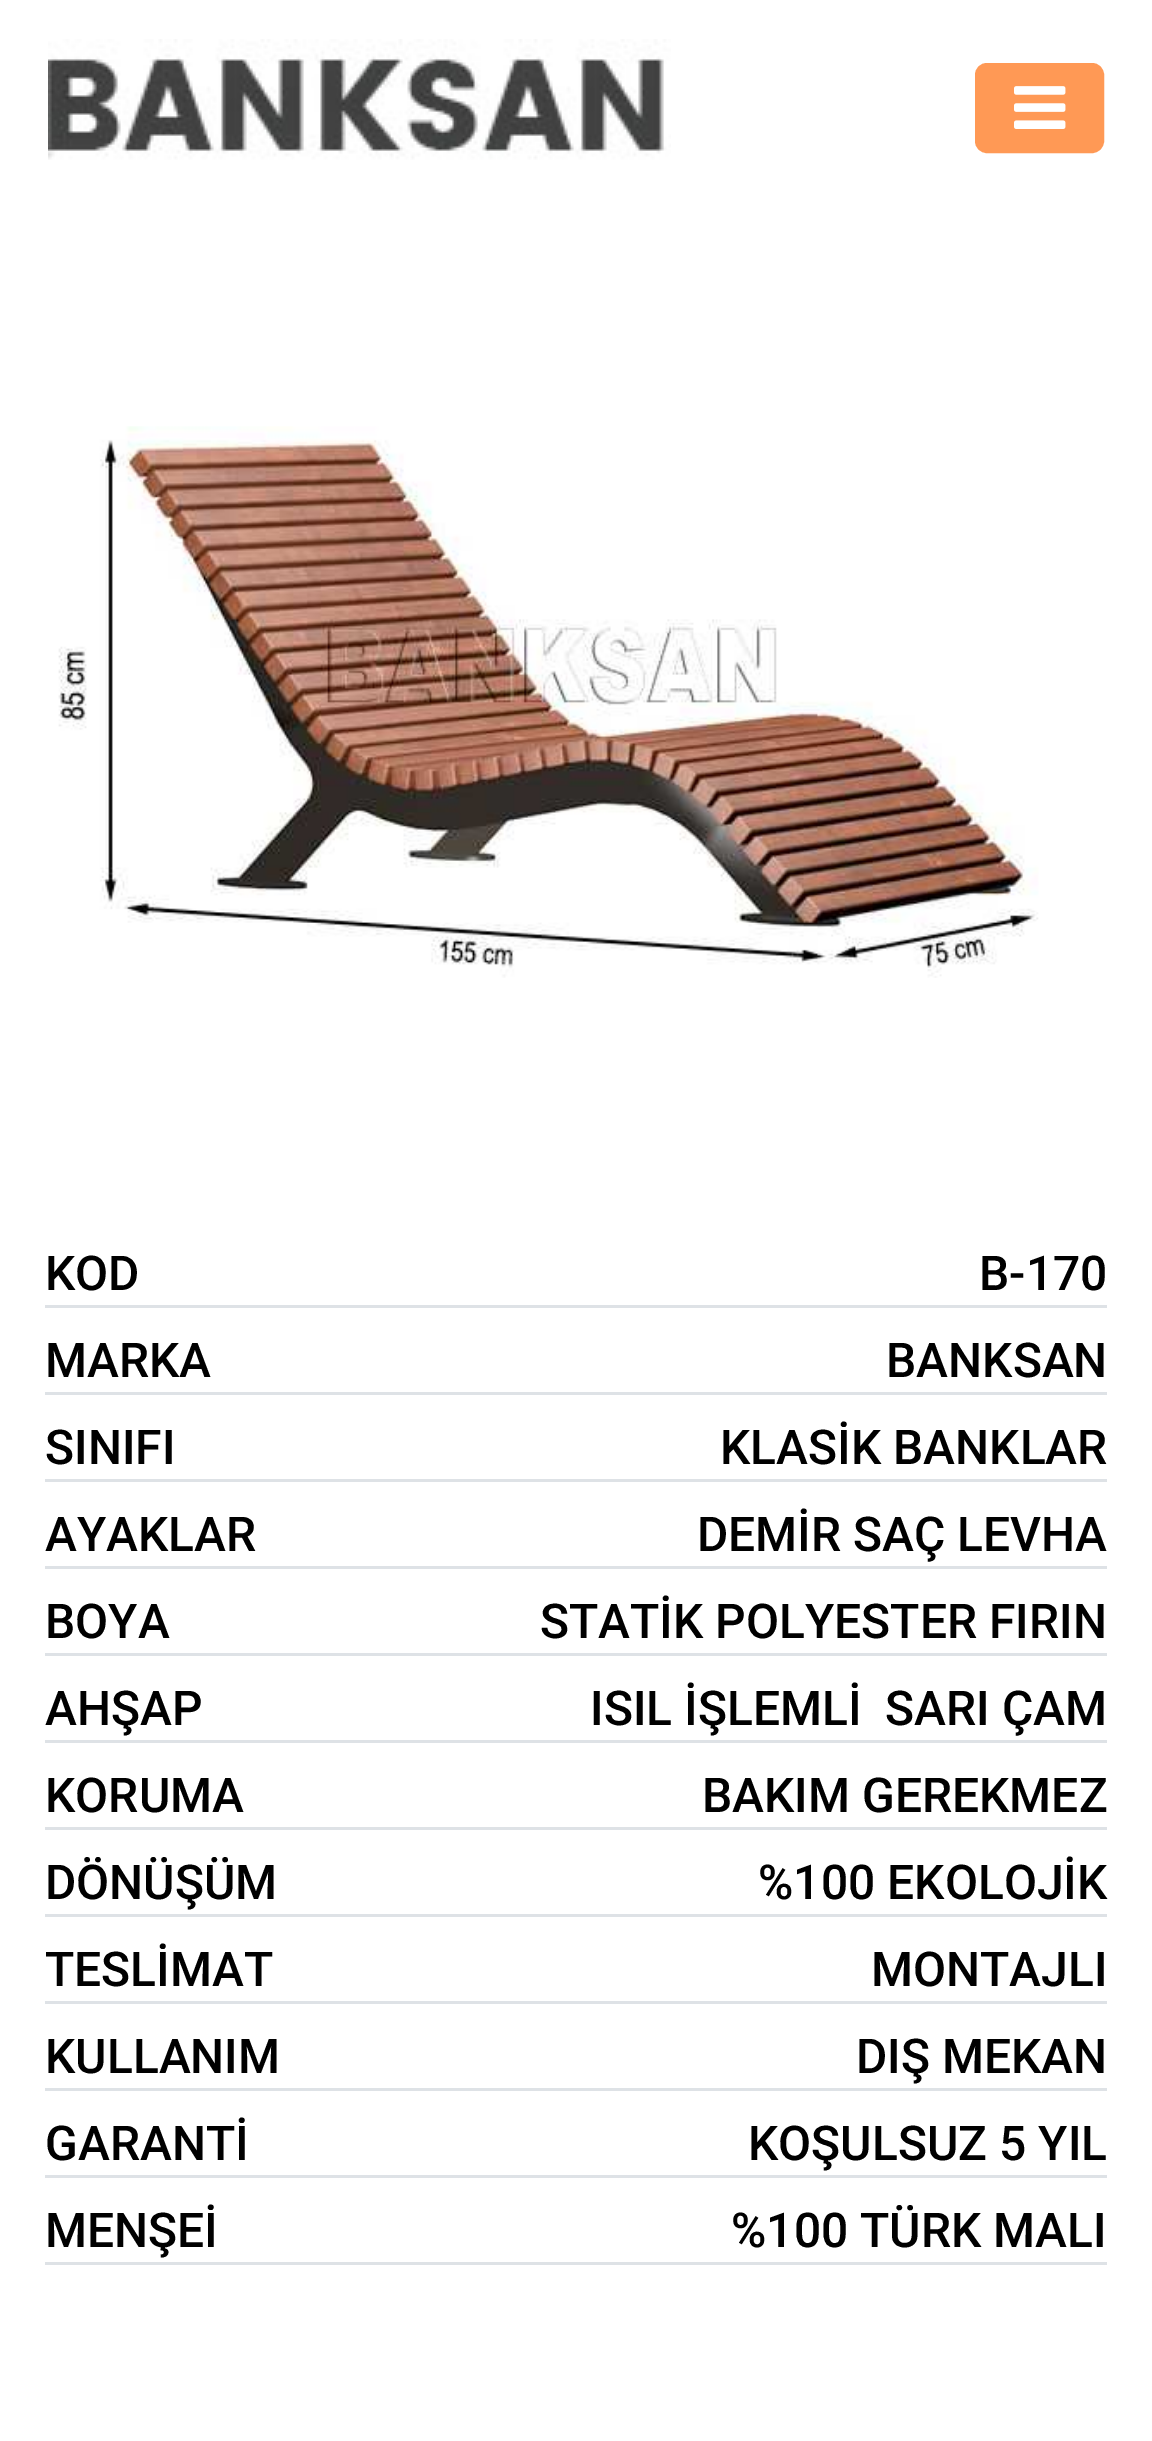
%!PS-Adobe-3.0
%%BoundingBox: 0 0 1152 2441
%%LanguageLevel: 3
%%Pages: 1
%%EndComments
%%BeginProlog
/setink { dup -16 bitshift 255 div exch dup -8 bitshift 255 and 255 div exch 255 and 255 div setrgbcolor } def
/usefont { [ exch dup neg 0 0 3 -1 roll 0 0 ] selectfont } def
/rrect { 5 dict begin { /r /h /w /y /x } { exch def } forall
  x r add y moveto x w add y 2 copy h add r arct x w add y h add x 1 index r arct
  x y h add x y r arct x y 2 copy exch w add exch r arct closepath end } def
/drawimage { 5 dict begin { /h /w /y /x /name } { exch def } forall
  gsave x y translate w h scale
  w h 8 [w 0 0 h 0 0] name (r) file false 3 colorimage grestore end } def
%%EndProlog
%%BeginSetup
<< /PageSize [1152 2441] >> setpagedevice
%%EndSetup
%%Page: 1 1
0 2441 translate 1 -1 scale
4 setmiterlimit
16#FFFFFF setink
0 0 1152 2441 rectfill
(img1.raw) 48 39 623 121 drawimage
16#FF9955 setink
976.5 64.5 126 87 10.5 rrect gsave fill grestore
3 setlinewidth
stroke
(img2.raw) 1014 86 52 43 drawimage
(img3.raw) 58 426 981 552 drawimage
16#DEE2E6 setink
45 1305 1062 3 rectfill
/Roboto-Medium 48 usefont
16#000000 setink
45 1290 moveto (KOD) show
979 1290 moveto (B-170) show
16#DEE2E6 setink
45 1392 1062 3 rectfill
16#000000 setink
45 1377 moveto (MARKA) show
886 1377 moveto (BANKSAN) show
16#DEE2E6 setink
45 1479 1062 3 rectfill
16#000000 setink
45 1464 moveto (SINIFI) show
720 1464 moveto (KLASİK BANKLAR) show
16#DEE2E6 setink
45 1566 1062 3 rectfill
16#000000 setink
45 1551 moveto (AYAKLAR) show
697 1551 moveto (DEMİR SAÇ LEVHA) show
16#DEE2E6 setink
45 1653 1062 3 rectfill
16#000000 setink
45 1638 moveto (BOYA) show
540 1638 moveto (STATİK POLYESTER FIRIN) show
16#DEE2E6 setink
45 1740 1062 3 rectfill
16#000000 setink
45 1725 moveto (AHŞAP) show
590 1725 moveto (ISIL İŞLEMLİ  SARI ÇAM) show
16#DEE2E6 setink
45 1827 1062 3 rectfill
16#000000 setink
45 1812 moveto (KORUMA) show
702 1812 moveto (BAKIM GEREKMEZ) show
16#DEE2E6 setink
45 1914 1062 3 rectfill
16#000000 setink
45 1899 moveto (DÖNÜŞÜM) show
758 1899 moveto (%100 EKOLOJİK) show
16#DEE2E6 setink
45 2001 1062 3 rectfill
16#000000 setink
45 1986 moveto (TESLİMAT) show
871 1986 moveto (MONTAJLI) show
16#DEE2E6 setink
45 2088 1062 3 rectfill
16#000000 setink
45 2073 moveto (KULLANIM) show
856 2073 moveto (DIŞ MEKAN) show
16#DEE2E6 setink
45 2175 1062 3 rectfill
16#000000 setink
45 2160 moveto (GARANTİ) show
748 2160 moveto (KOŞULSUZ 5 YIL) show
16#DEE2E6 setink
45 2262 1062 3 rectfill
16#000000 setink
45 2247 moveto (MENŞEİ) show
731 2247 moveto (%100 TÜRK MALI) show
showpage
%%EOF
